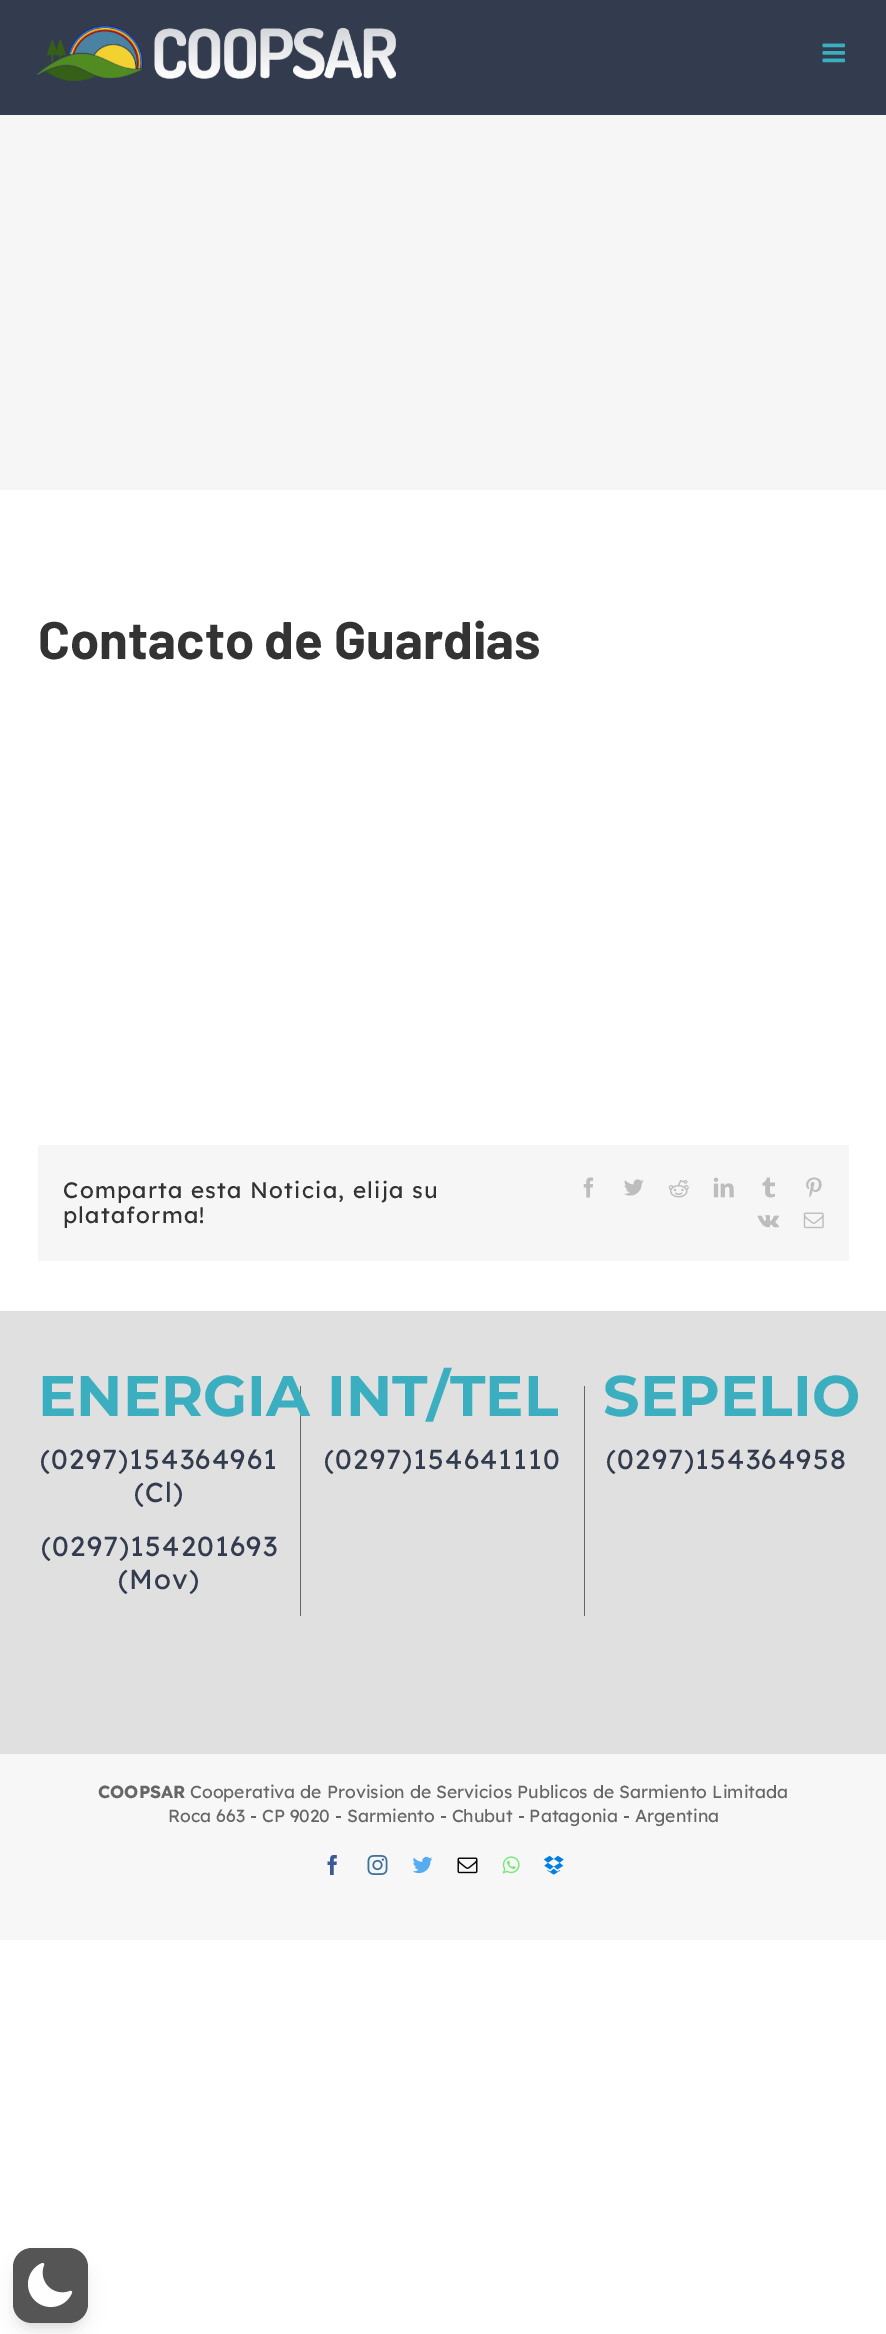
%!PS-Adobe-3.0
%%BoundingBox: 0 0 886 2334
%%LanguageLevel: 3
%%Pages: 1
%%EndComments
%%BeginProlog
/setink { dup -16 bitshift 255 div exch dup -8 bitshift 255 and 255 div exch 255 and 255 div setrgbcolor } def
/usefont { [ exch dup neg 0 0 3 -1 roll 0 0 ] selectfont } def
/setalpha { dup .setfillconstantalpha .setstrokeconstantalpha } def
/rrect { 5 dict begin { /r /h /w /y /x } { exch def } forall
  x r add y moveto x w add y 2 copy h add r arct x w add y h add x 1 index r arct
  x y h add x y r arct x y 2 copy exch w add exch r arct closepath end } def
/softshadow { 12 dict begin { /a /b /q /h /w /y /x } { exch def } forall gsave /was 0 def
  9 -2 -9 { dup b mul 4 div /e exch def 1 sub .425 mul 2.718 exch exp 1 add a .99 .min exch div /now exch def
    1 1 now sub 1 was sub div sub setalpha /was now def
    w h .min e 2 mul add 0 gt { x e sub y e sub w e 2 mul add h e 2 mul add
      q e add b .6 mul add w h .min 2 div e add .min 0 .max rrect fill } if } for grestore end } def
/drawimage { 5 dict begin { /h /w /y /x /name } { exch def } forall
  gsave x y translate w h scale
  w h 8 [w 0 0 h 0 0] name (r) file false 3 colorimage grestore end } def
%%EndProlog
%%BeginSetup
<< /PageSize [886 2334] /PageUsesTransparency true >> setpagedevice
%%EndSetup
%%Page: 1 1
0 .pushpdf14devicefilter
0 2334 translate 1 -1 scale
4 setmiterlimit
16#FFFFFF setink
0 0 886 2334 rectfill
16#333C4E setink
0 0 886 115 rectfill
(img1.raw) 37 25 359 56 drawimage
(img2.raw) 822 43 23 20 drawimage
16#F6F6F6 setink
0 115 886 375 rectfill
/Barlow-Bold 52.75 usefont
16#333333 setink
38 659 moveto (Contacto de Guardias) show
16#F6F6F6 setink
38 1145 811 116 rectfill
/Lexend-Regular 22.5 usefont
16#333333 setink
63 1198 moveto 1.25 0 (Comparta esta Noticia, elija su) ashow
63 1223 moveto 1.25 0 (plataforma!) ashow
(img3.raw) 583 1177 11 21 drawimage
(img4.raw) 624 1179 20 17 drawimage
(img5.raw) 668 1180 21 18 drawimage
(img6.raw) 713 1177 21 21 drawimage
(img7.raw) 762 1177 13 21 drawimage
(img8.raw) 806 1177 16 21 drawimage
(img9.raw) 757 1215 22 13 drawimage
(img10.raw) 803 1212 21 17 drawimage
16#E0E0E0 setink
0 1311 886 443 rectfill
16#666666 setink
300 1386 1 230 rectfill
/Montserrat-Bold 57.25 usefont
16#3BAFBF setink
38 1416 moveto (ENERGIA) show
/Lexend-Regular 27.5 usefont
16#333C4E setink
40 1469 moveto 1.25 0 (\(0297\)154364961) ashow
134 1502 moveto 1.25 0 (\(Cl\)) ashow
41 1556 moveto 1.25 0 (\(0297\)154201693) ashow
118 1589 moveto 1.25 0 (\(Mov\)) ashow
16#666666 setink
584 1386 1 230 rectfill
/Montserrat-Bold 57.25 usefont
16#3BAFBF setink
327 1416 moveto (INT/TEL) show
/Lexend-Regular 27.5 usefont
16#333C4E setink
324 1469 moveto 1.25 0 (\(0297\)154641110) ashow
/Montserrat-Bold 57.25 usefont
16#3BAFBF setink
603 1416 moveto (SEPELIO) show
/Lexend-Regular 27.5 usefont
16#333C4E setink
606 1469 moveto 1.25 0 (\(0297\)154364958) ashow
16#F7F7F7 setink
0 1754 886 186 rectfill
/Lexend-Bold 17.5 usefont
16#666666 setink
98 1798 moveto (COOPSAR) show
/Lexend-Regular 17.5 usefont
190 1798 moveto (Cooperativa de Provision de Servicios Publicos de Sarmiento Limitada) show
168 1822 moveto (Roca 663 - CP 9020 - Sarmiento - Chubut - Patagonia - Argentina) show
(img11.raw) 327 1855 10 20 drawimage
(img12.raw) 367 1855 21 20 drawimage
(img13.raw) 412 1856 21 18 drawimage
(img14.raw) 457 1857 21 17 drawimage
(img15.raw) 502 1856 18 18 drawimage
(img16.raw) 543 1855 21 20 drawimage
16#000000 setink
18 2258 65 65 14 4 0.1 softshadow
16 2264 68 67 15 9.5 0.1 softshadow
16#555555 setink
13 2248 75 75 19 rrect fill
(img17.raw) 28 2263 45 45 drawimage
.poppdf14devicefilter showpage
%%EOF
